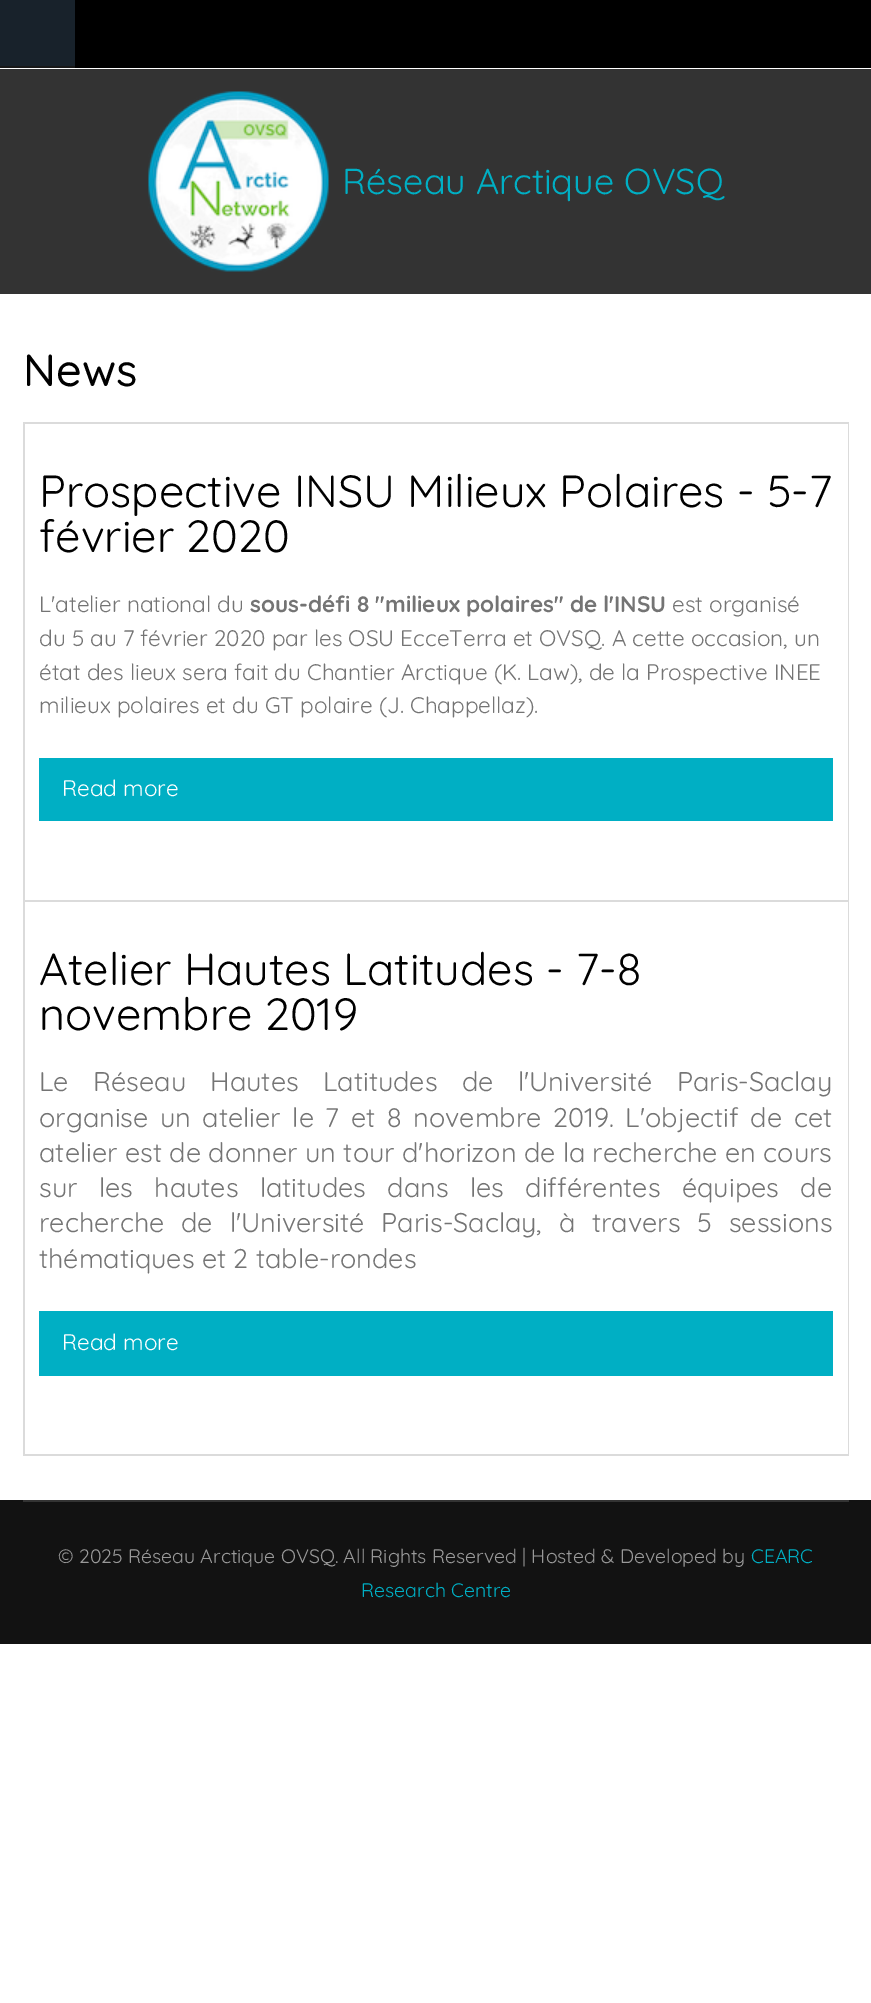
%!PS-Adobe-3.0
%%BoundingBox: 0 0 871 2003
%%LanguageLevel: 3
%%Pages: 1
%%EndComments
%%BeginProlog
/setink { dup -16 bitshift 255 div exch dup -8 bitshift 255 and 255 div exch 255 and 255 div setrgbcolor } def
/usefont { [ exch dup neg 0 0 3 -1 roll 0 0 ] selectfont } def
/drawimage { 5 dict begin { /h /w /y /x /name } { exch def } forall
  gsave x y translate w h scale
  w h 8 [w 0 0 h 0 0] name (r) file false 3 colorimage grestore end } def
%%EndProlog
%%BeginSetup
<< /PageSize [871 2003] >> setpagedevice
%%EndSetup
%%Page: 1 1
0 2003 translate 1 -1 scale
4 setmiterlimit
16#FFFFFF setink
0 0 871 2003 rectfill
[
    [0 69 871 225 16#333333]
    [75 0 796 68 16#000000]
    [0 0 75 66 16#18222B]
    [0 66 75 2 16#181818]
] { aload pop setink rectfill } forall
(img1.raw) 148 91 181 181 drawimage
/Quicksand-Regular 36 usefont
16#00AFC4 setink
342 194 moveto (Réseau Arctique OVSQ) show
/Quicksand-Medium 45 usefont
16#000000 setink
23 386 moveto (News) show
[
    [23 422 826 2 16#DBDBDB]
    [23 900 826 2 16#DBDBDB]
    [848 900 1 555 16#DBDBDB]
    [848 422 1 480 16#DBDBDB]
    [23 1454 826 2 16#DBDBDB]
    [23 900 2 555 16#DBDBDB]
    [23 422 2 480 16#DBDBDB]
] { aload pop setink rectfill } forall
/Quicksand-Regular 45 usefont
16#000000 setink
39 507 moveto (Prospective INSU Milieux Polaires - 5-7) show
39 552 moveto (février 2020) show
/Quicksand-Regular 22.5 usefont
16#747474 setink
39 612 moveto (L'atelier national du) show
/Quicksand-Bold 22.5 usefont
250 612 moveto (sous-défi 8 "milieux polaires" de l'INSU) show
/Quicksand-Regular 22.5 usefont
[
    [(est organisé) 672 612]
    [(du 5 au 7 février 2020 par les OSU EcceTerra et OVSQ. A cette occasion, un) 39 646]
    [(état des lieux sera fait du Chantier Arctique \(K. Law\), de la Prospective INEE) 39 680]
    [(milieux polaires et du GT polaire \(J. Chappellaz\).) 39 713]
] { aload pop moveto show } forall
16#00AFC4 setink
39 758 794 63 rectfill
16#FFFFFF setink
62 796 moveto (Read more) show
/Quicksand-Regular 45 usefont
16#000000 setink
39 985 moveto (Atelier Hautes Latitudes - 7-8) show
39 1030 moveto (novembre 2019) show
/Quicksand-Regular 27 usefont
16#747474 setink
39 1091 moveto 17 0 32 (Le Réseau Hautes Latitudes de l'Université Paris-Saclay) widthshow
39 1127 moveto 4.25 0 32 (organise un atelier le 7 et 8 novembre 2019. L'objectif de cet) widthshow
39 1162 moveto (atelier est de donner un tour d'horizon de la recherche en cours) show
39 1197 moveto 14 0 32 (sur les hautes latitudes dans les différentes équipes de) widthshow
39 1232 moveto 9.5 0 32 (recherche de l'Université Paris-Saclay, à travers 5 sessions) widthshow
39 1268 moveto (thématiques et 2 table-rondes) show
16#00AFC4 setink
39 1311 794 65 rectfill
/Quicksand-Regular 22.5 usefont
16#FFFFFF setink
62 1350 moveto (Read more) show
16#121212 setink
0 1500 871 144 rectfill
16#333333 setink
23 1500 826 2 rectfill
/Quicksand-Regular 19.5 usefont
16#999999 setink
58 1563 moveto (© 2025 Réseau Arctique OVSQ. All Rights Reserved | Hosted & Developed by) show
16#00AFC4 setink
751 1563 moveto (CEARC) show
361 1597 moveto (Research Centre) show
showpage
%%EOF
